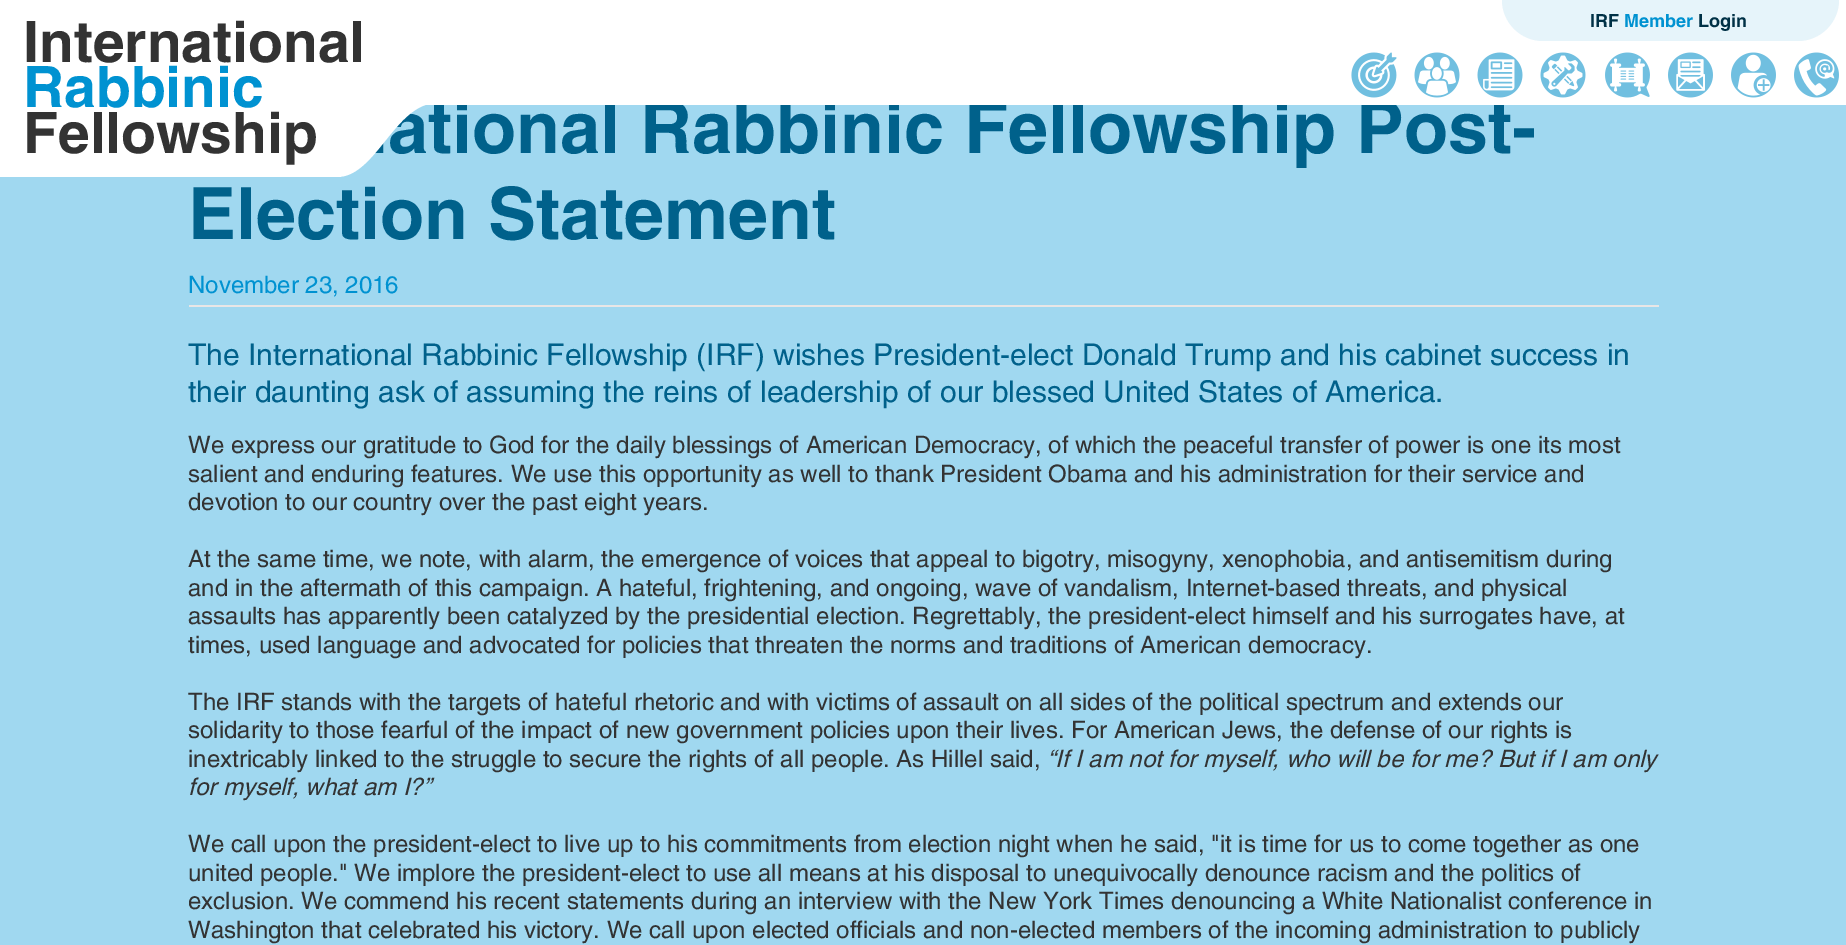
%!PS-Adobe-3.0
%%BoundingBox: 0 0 1846 945
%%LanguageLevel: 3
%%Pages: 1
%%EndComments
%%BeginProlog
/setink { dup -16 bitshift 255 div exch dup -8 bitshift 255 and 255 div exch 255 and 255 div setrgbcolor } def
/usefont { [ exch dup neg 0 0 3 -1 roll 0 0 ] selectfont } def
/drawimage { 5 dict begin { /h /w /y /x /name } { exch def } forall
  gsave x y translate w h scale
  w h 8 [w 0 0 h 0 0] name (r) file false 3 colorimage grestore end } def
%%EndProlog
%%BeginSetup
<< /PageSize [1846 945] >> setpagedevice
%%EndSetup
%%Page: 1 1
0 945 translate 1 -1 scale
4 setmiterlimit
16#A0D8F0 setink
0 0 1846 945 rectfill
/helvetica-Bold 72 usefont
16#00618B setink
344 153 moveto (national Rabbinic Fellowship Post-) show
16#FFFFFF setink
425 0 1421 105 rectfill
337 177 moveto 0 177 lineto 0 0 lineto 450 0 lineto 450 103 lineto 437 103 lineto 395 103 376 177 337 177 curveto closepath eofill
/helvetica-Bold 57 usefont
16#333333 setink
23 62 moveto (International) show
16#0092D1 setink
23 107 moveto (Rabbinic) show
16#333333 setink
23 153 moveto (Fellowship) show
16#E6F4FA setink
1502 0 moveto 1839 0 lineto 1839 22.5 1820.5 41 1798 41 curveto 1543 41 lineto 1520.5 41 1502 22.5 1502 0 curveto closepath fill
/helvetica-Bold 18 usefont
16#003146 setink
1590 27 moveto (IRF) show
16#0092D1 setink
1624 27 moveto (Member) show
16#003146 setink
1698 27 moveto (Login) show
(img1.raw) 1351 52 46 46 drawimage
(img2.raw) 1414 52 46 46 drawimage
(img3.raw) 1477 52 46 46 drawimage
(img4.raw) 1540 52 46 46 drawimage
(img5.raw) 1605 52 45 46 drawimage
(img6.raw) 1668 52 45 46 drawimage
(img7.raw) 1731 52 45 46 drawimage
(img8.raw) 1794 52 45 46 drawimage
/helvetica-Bold 72 usefont
16#00618B setink
188 239 moveto (Election Statement) show
/helvetica-Regular 24 usefont
16#0092D1 setink
188 293 moveto (November 23, 2016) show
16#E8E6E6 setink
189 305 1470 2 rectfill
/helvetica-Regular 30 usefont
16#00618B setink
188 365 moveto (The International Rabbinic Fellowship \(IRF\) wishes President-elect Donald Trump and his cabinet success in) show
188 402 moveto (their daunting ask of assuming the reins of leadership of our blessed United States of America.) show
/helvetica-Regular 24 usefont
16#333333 setink
[
    [(We express our gratitude to God for the daily blessings of American Democracy, of which the peaceful transfer of power is one its most) 188 453]
    [(salient and enduring features. We use this opportunity as well to thank President Obama and his administration for their service and) 188 482]
    [(devotion to our country over the past eight years.) 188 510]
    [(At the same time, we note, with alarm, the emergence of voices that appeal to bigotry, misogyny, xenophobia, and antisemitism during) 188 567]
    [(and in the aftermath of this campaign. A hateful, frightening, and ongoing, wave of vandalism, Internet-based threats, and physical) 188 596]
    [(assaults has apparently been catalyzed by the presidential election. Regrettably, the president-elect himself and his surrogates have, at) 188 624]
    [(times, used language and advocated for policies that threaten the norms and traditions of American democracy.) 188 653]
    [(The IRF stands with the targets of hateful rhetoric and with victims of assault on all sides of the political spectrum and extends our) 188 710]
    [(solidarity to those fearful of the impact of new government policies upon their lives. For American Jews, the defense of our rights is) 188 738]
    [(inextricably linked to the struggle to secure the rights of all people. As Hillel said,) 188 767]
] { aload pop moveto show } forall
/helvetica-Italic 24 usefont
1047 767 moveto (“If I am not for myself, who will be for me? But if I am only) show
188 795 moveto (for myself, what am I?”) show
/helvetica-Regular 24 usefont
[
    [(We call upon the president-elect to live up to his commitments from election night when he said, "it is time for us to come together as one) 188 852]
    [(united people." We implore the president-elect to use all means at his disposal to unequivocally denounce racism and the politics of) 188 881]
    [(exclusion. We commend his recent statements during an interview with the New York Times denouncing a White Nationalist conference in) 188 909]
    [(Washington that celebrated his victory. We call upon elected officials and non-elected members of the incoming administration to publicly) 188 938]
] { aload pop moveto show } forall
showpage
%%EOF
